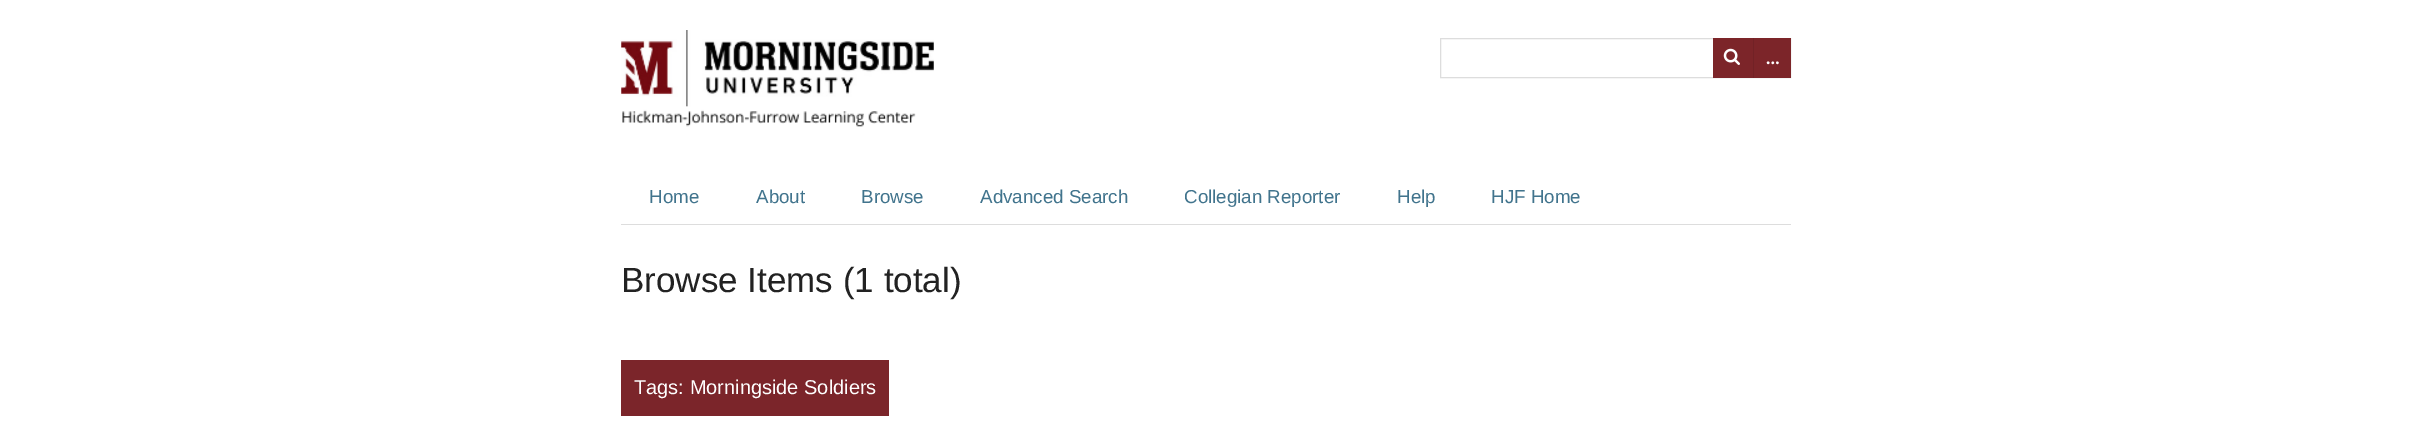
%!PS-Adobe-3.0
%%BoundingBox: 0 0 2412 438
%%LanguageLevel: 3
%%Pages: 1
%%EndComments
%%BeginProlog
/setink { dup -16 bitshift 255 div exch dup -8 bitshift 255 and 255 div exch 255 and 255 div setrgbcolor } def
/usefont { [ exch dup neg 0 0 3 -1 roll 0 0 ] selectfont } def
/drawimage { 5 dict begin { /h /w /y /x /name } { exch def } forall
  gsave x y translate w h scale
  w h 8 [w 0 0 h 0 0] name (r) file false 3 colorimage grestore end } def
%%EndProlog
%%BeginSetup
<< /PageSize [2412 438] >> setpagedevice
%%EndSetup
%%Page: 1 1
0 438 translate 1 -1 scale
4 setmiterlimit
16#FFFFFF setink
0 0 2412 438 rectfill
(img1.raw) 621 30 313 97 drawimage
16#DDDDDD setink
1440.5 38.5 350 39 rectstroke
16#7C2529 setink
1713 38 40 40 rectfill
(img2.raw) 1723 48 17 17 drawimage
1754 38 37 40 rectfill
16#722226 setink
1753 38 1 40 rectfill
/Lato-Bold 18 usefont
16#FFFFFF setink
1766 64 moveto (…) show
/LiberationSans-Regular 18.75 usefont
16#41748D setink
[
    [(Home) 649 203]
    [(About) 756 203]
    [(Browse) 861 203]
    [(Advanced Search) 980 203]
    [(Collegian Reporter) 1184 203]
    [(Help) 1397 203]
    [(HJF Home) 1491 203]
] { aload pop moveto show } forall
16#DDDDDD setink
621 224 1170 1 rectfill
/LiberationSans-Regular 35 usefont
16#222222 setink
621 292 moveto (Browse Items \(1 total\)) show
16#7B252A setink
621 360 268 56 rectfill
/LiberationSans-Regular 20 usefont
16#FFFFFF setink
634 394 moveto (Tags: Morningside Soldiers) show
showpage
%%EOF
